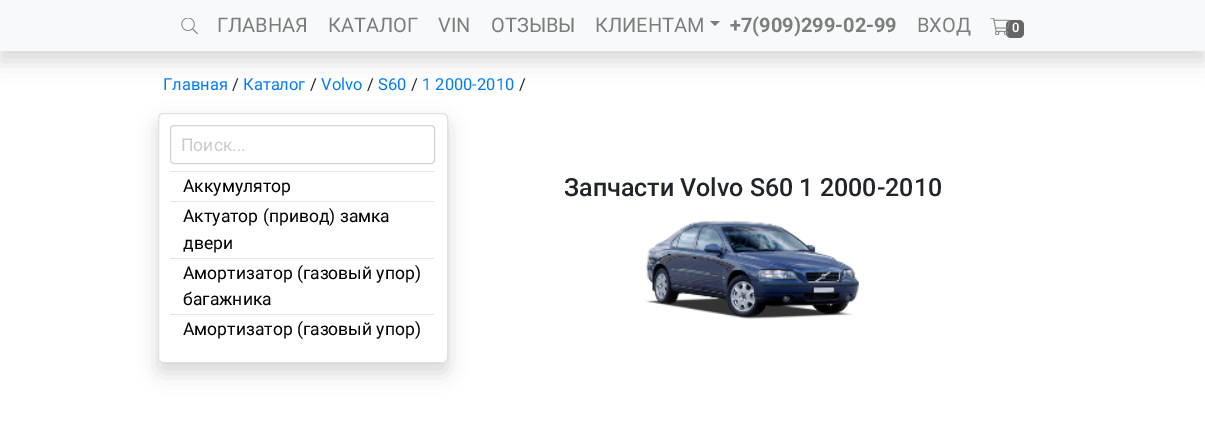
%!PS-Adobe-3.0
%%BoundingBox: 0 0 1205 436
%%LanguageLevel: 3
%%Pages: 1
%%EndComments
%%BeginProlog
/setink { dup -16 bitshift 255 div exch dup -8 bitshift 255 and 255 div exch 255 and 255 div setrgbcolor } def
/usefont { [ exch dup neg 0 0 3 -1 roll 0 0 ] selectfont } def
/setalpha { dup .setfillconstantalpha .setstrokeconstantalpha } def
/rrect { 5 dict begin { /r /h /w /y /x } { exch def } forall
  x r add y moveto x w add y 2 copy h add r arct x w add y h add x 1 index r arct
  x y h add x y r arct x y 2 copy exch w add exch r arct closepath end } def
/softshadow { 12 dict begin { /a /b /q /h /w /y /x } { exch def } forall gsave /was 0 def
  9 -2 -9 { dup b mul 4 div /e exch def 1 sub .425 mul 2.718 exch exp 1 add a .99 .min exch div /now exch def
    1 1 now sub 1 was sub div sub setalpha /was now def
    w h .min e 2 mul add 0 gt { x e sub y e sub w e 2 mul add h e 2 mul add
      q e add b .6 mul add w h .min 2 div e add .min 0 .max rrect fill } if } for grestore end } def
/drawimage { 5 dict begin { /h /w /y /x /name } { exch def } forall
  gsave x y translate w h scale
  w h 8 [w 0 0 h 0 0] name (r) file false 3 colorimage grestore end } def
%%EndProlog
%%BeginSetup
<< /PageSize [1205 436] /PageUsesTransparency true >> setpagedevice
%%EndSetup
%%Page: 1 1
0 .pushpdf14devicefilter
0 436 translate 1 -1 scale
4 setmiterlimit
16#FFFFFF setink
0 0 1205 436 rectfill
16#000000 setink
0 10 1205 51 0 10 0.15 softshadow
16#F8F9FA setink
0 0 1205 51 rectfill
(img1.raw) 181 18 17 16 drawimage
/Roboto-Regular 20 usefont
16#7C7D7D setink
[
    [(ГЛАВНАЯ) 217 32]
    [(КАТАЛОГ) 328 32]
    [(VIN) 438 32]
    [(ОТЗЫВЫ) 491 32]
    [(КЛИЕНТАМ) 595 32]
] { aload pop moveto show } forall
710 21 moveto 720 21 lineto 715 26 lineto closepath fill
/Roboto-Bold 20 usefont
730 32 moveto (+7\(909\)299-02-99) show
/Roboto-Regular 20 usefont
917 32 moveto (ВХОД) show
16#666666 setink
1006 20 18 18 5 rrect fill
(img2.raw) 990 18 20 17 drawimage
/Roboto-SemiBold 13 usefont
16#FFFFFF setink
1012 32 moveto (0) show
/Roboto-Regular 16.5 usefont
16#007BFF setink
163 90 moveto (Главная) show
16#212529 setink
232 90 moveto (/) show
16#007BFF setink
243 90 moveto (Каталог) show
16#212529 setink
310 90 moveto (/) show
16#007BFF setink
321 90 moveto (Volvo) show
16#212529 setink
367 90 moveto (/) show
16#007BFF setink
378 90 moveto (S60) show
16#212529 setink
411 90 moveto (/) show
16#007BFF setink
422 90 moveto (1 2000-2010) show
16#212529 setink
519 90 moveto (/) show
16#000000 setink
158 123 290 250 5 10 0.15 softshadow
16#FFFFFF setink
158 113 290 250 5 rrect fill
0.12 setalpha
16#000000 setink
158.5 113.5 289 249 4.5 rrect stroke
1 setalpha
16#CED4DA setink
170.5 125.5 264 38 3.5 rrect stroke
/Roboto-Regular 17.5 usefont
16#CCCCCC setink
181 151 moveto (Поиск...) show
16#E5E5E5 setink
170 171 264 1 rectfill
16#000000 setink
183 192 moveto (Аккумулятор) show
16#E5E5E5 setink
170 201 264 1 rectfill
16#000000 setink
183 222 moveto (Актуатор \(привод\) замка) show
183 249 moveto (двери) show
16#E5E5E5 setink
170 258 264 1 rectfill
16#000000 setink
183 279 moveto (Амортизатор \(газовый упор\)) show
183 305 moveto (багажника) show
16#E5E5E5 setink
170 314 264 1 rectfill
16#000000 setink
183 335 moveto (Амортизатор \(газовый упор\)) show
/Roboto-Medium 25 usefont
16#212529 setink
564 196 moveto (Запчасти Volvo S60 1 2000-2010) show
(img3.raw) 645 220 214 99 drawimage
.poppdf14devicefilter showpage
%%EOF
